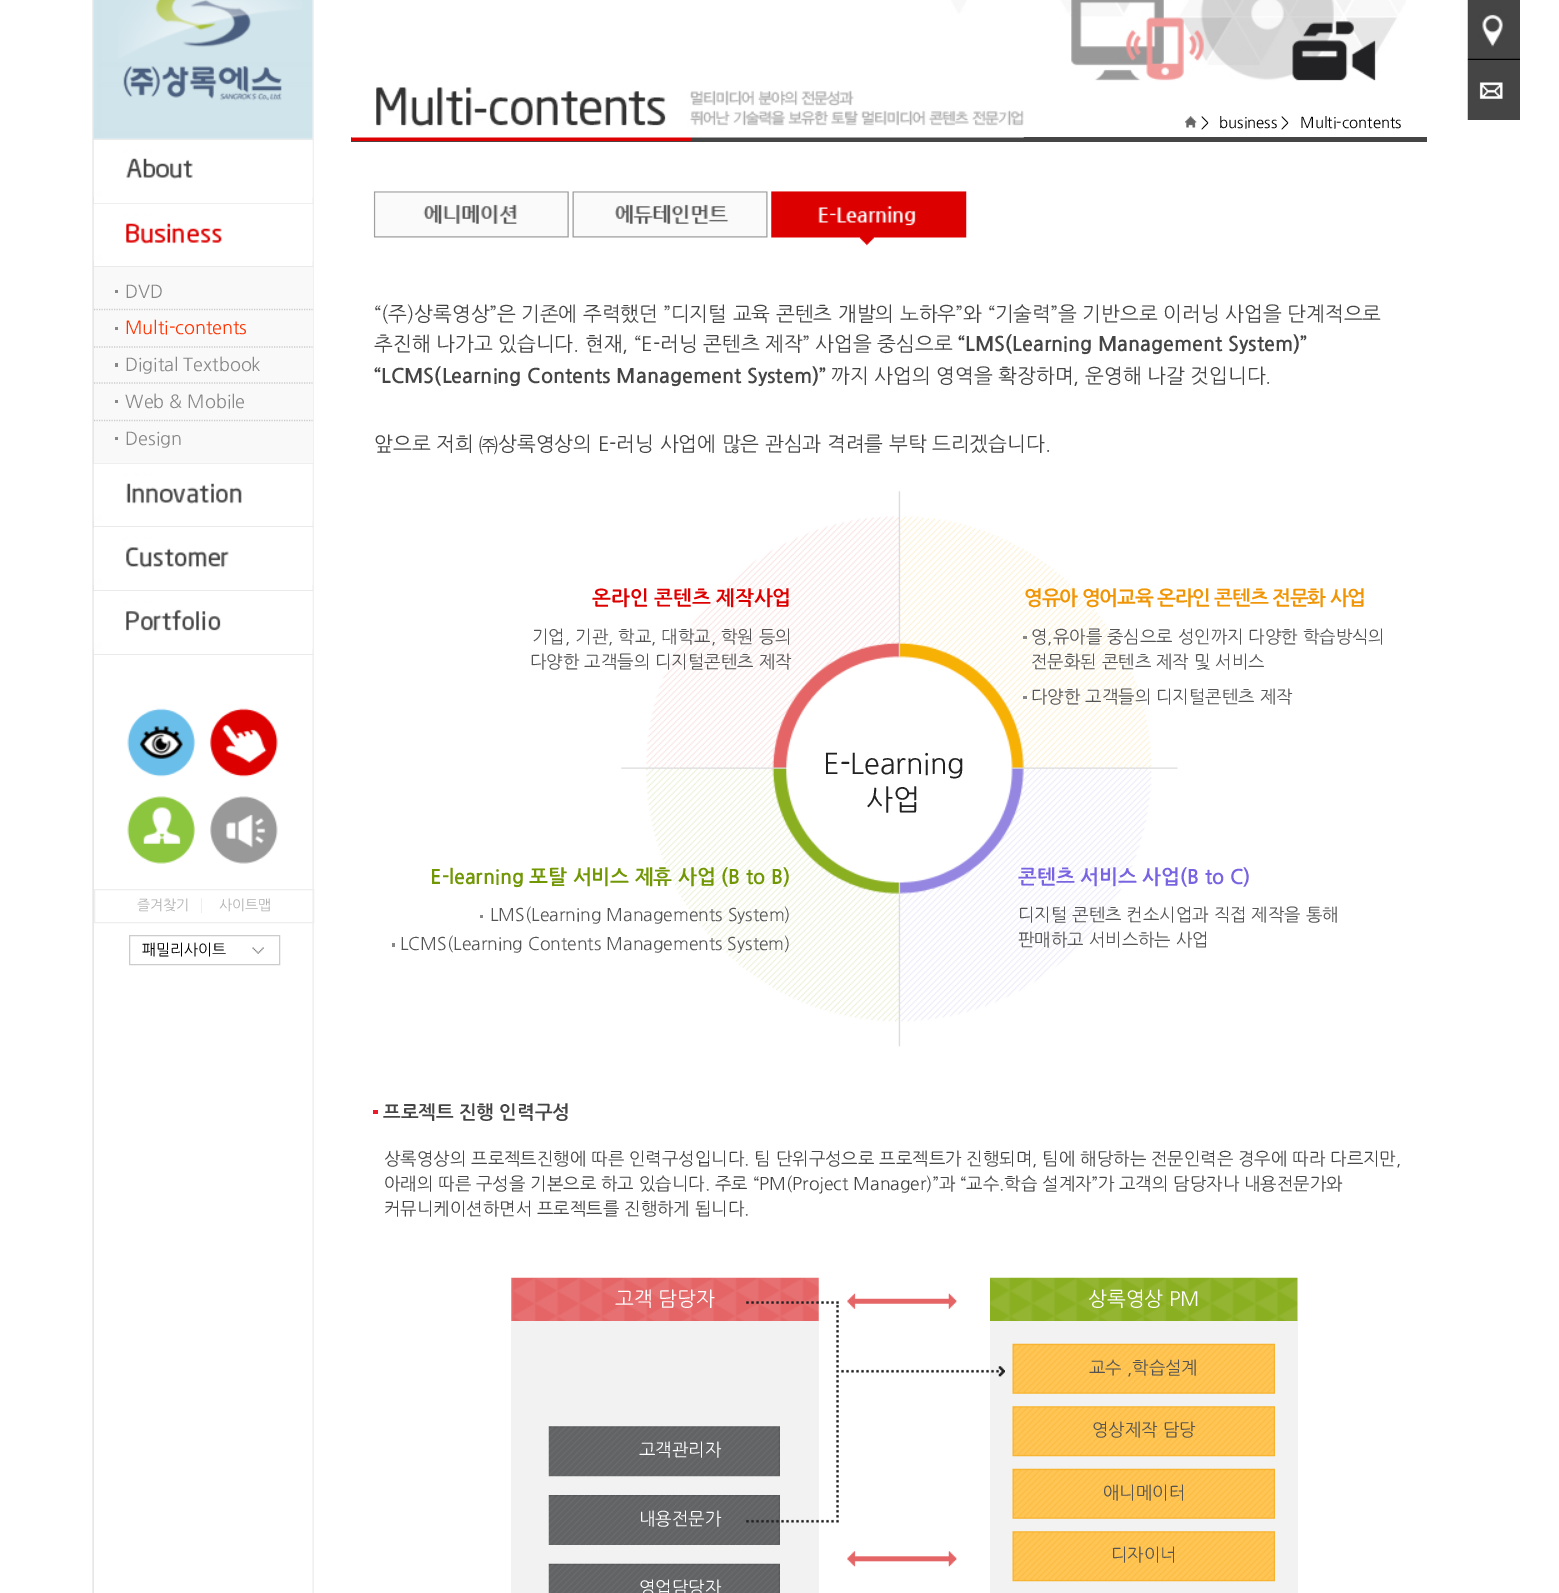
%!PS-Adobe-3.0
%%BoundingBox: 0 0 1559 1593
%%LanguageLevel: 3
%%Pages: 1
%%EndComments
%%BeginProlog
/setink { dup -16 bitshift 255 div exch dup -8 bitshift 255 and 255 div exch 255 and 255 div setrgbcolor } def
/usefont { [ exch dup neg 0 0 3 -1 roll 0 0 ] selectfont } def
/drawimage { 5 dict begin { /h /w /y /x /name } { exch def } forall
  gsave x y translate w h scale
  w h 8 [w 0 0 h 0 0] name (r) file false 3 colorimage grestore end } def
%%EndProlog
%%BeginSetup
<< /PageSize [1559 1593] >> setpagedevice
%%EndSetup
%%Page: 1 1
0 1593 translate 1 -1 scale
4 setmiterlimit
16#FFFFFF setink
0 0 1559 1593 rectfill
(img1.raw) 1467 0 53 60 drawimage
(img2.raw) 1467 60 53 60 drawimage
(img3.raw) 92 0 1376 1593 drawimage
(img4.raw) 93 0 220 139 drawimage
(img5.raw) 118 0 184 58 drawimage
16#EAEAEA setink
94 139 219 1 rectfill
94 203 219 1 rectfill
(img6.raw) 93 140 220 57 drawimage
94 463 219 1 rectfill
(img7.raw) 93 203 220 58 drawimage
[
    [94 267 219 196 16#F9F9F9]
    [94 266 219 1 16#EAEAEA]
    [115 290 3 3 16#888888]
] { aload pop setink rectfill } forall
/NanumGothic-Regular 18 usefont
125 298 moveto (DVD) show
16#CCCCCC setink
1.2 setlinewidth
[1.25 1.25] 0 setdash
94 309.5 moveto 312.5 309.5 lineto stroke
16#888888 setink
115 327 3 3 rectfill
16#FF3300 setink
125 334 moveto (Multi-contents) show
16#CCCCCC setink
94 347 moveto 312.5 347 lineto stroke
16#888888 setink
115 363 3 4 rectfill
125 371 moveto (Digital Textbook) show
16#CCCCCC setink
94 383 moveto 312.5 383 lineto stroke
16#888888 setink
115 400 3 3 rectfill
125 408 moveto (Web & Mobile) show
16#CCCCCC setink
94 420.5 moveto 312.5 420.5 lineto stroke
16#888888 setink
115 437 3 3 rectfill
125 445 moveto (Design) show
16#EAEAEA setink
94 526 219 1 rectfill
(img8.raw) 93 463 220 58 drawimage
94 590 219 1 rectfill
(img9.raw) 93 528 220 57 drawimage
94 654 219 1 rectfill
(img10.raw) 93 591 220 58 drawimage
(img11.raw) 127 708 68 69 drawimage
(img12.raw) 210 708 68 69 drawimage
(img13.raw) 127 796 68 68 drawimage
(img14.raw) 210 796 68 68 drawimage
16#EEEEEE setink
1 setlinewidth
[] 0 setdash
94.5 889.5 219 33 rectstroke
/NanumGothic-Regular 14 usefont
16#B2B2B2 setink
137 910 moveto (즐겨찾기) show
16#EEEEEE setink
201 898 1 15 rectfill
16#B2B2B2 setink
219 910 moveto (사이트맵) show
(img15.raw) 252 947 12 7 drawimage
16#CCCCCC setink
129.5 935.5 150 29 rectstroke
/NanumGothic-Regular 15 usefont
16#000000 setink
142 955 moveto (패밀리사이트) show
16#454545 setink
351 137 1076 5 rectfill
(img16.raw) 951 0 455 81 drawimage
(img17.raw) 351 87 673 55 drawimage
(img18.raw) 1185 116 12 12 drawimage
16#000000 setink
[
    [(>) 1201 128]
    [(business >) 1219 128]
    [(Multi-contents) 1300 128]
] { aload pop moveto show } forall
(img19.raw) 373 191 196 47 drawimage
(img20.raw) 572 191 196 47 drawimage
(img21.raw) 771 191 196 55 drawimage
/NanumGothic-Regular 20 usefont
16#454545 setink
374 321 moveto (“\(주\)상록영상”은 기존에 주력했던 ”디지털 교육 콘텐츠 개발의 노하우”와 “기술력”을 기반으로 이러닝 사업을 단계적으로) show
374 351 moveto (추진해 나가고 있습니다. 현재, “E-러닝 콘텐츠 제작” 사업을 중심으로) show
/NanumGothic-Bold 20 usefont
958 351 moveto (“LMS\(Learning Management System\)”) show
374 383 moveto (“LCMS\(Learning Contents Management System\)”) show
/NanumGothic-Regular 20 usefont
831 383 moveto (까지 사업의 영역을 확장하며, 운영해 나갈 것입니다.) show
374 451 moveto (앞으로 저희) show
/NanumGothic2-Regular 20 usefont
479 451 moveto (㈜) show
/NanumGothic-Regular 20 usefont
498 451 moveto (상록영상의 E-러닝 사업에 많은 관심과 격려를 부탁 드리겠습니다.) show
(img22.raw) 621 491 557 556 drawimage
/NanumGothic-Bold 20 usefont
16#DD0000 setink
592 605 moveto (온라인 콘텐츠 제작사업) show
/NanumGothic-Regular 17.5 usefont
16#545454 setink
532 643 moveto (기업, 기관, 학교, 대학교, 학원 등의) show
530 668 moveto (다양한 고객들의 디지털콘텐츠 제작) show
/NanumGothic-Bold 20 usefont
16#F09505 setink
1024 605 moveto -1.1 0 (영유아 영어교육 온라인 콘텐츠 전문화 사업) ashow
16#888888 setink
1023 636 4 3 rectfill
/NanumGothic-Regular 17.5 usefont
16#545454 setink
1031 643 moveto (영,유아를 중심으로 성인까지 다양한 학습방식의) show
1031 668 moveto (전문화된 콘텐츠 제작 및 서비스) show
16#888888 setink
1023 696 4 3 rectfill
16#545454 setink
1031 703 moveto (다양한 고객들의 디지털콘텐츠 제작) show
/NanumGothic-Regular 28.75 usefont
16#222222 setink
823 774 moveto (E-Learning) show
866 810 moveto (사업) show
/NanumGothic-Bold 20 usefont
16#719704 setink
430 884 moveto (E-learning 포탈 서비스 제휴 사업 \(B to B\)) show
16#888888 setink
480 915 3 3 rectfill
/NanumGothic-Regular 17.5 usefont
16#545454 setink
490 921 moveto (LMS\(Learning Managements System\)) show
16#888888 setink
392 943 3 4 rectfill
16#545454 setink
400 950 moveto (LCMS\(Learning Contents Managements System\)) show
/NanumGothic-Bold 20 usefont
16#7864E1 setink
1018 884 moveto (콘텐츠 서비스 사업\(B to C\)) show
/NanumGothic-Regular 17.5 usefont
16#545454 setink
1018 921 moveto (디지털 콘텐츠 컨소시업과 직접 제작을 통해) show
1018 946 moveto (판매하고 서비스하는 사업) show
16#ED1B29 setink
373 1110 5 4 rectfill
/NanumGothic-Bold 18.75 usefont
16#454545 setink
383 1119 moveto (프로젝트 진행 인력구성) show
/NanumGothic-Regular 17.5 usefont
[
    [(상록영상의 프로젝트진행에 따른 인력구성입니다. 팀 단위구성으로 프로젝트가 진행되며, 팀에 해당하는 전문인력은 경우에 따라 다르지만,) 384 1165]
    [(아래의 따른 구성을 기본으로 하고 있습니다. 주로 “PM\(Project Manager\)”과 “교수.학습 설계자”가 고객의 담당자나 내용전문가와) 384 1190]
    [(커뮤니케이션하면서 프로젝트를 진행하게 됩니다.) 384 1215]
] { aload pop moveto show } forall
(img23.raw) 511 1277 308 44 drawimage
/NanumGothic-Regular 20 usefont
16#FFFFFF setink
615 1306 moveto (고객 담당자) show
16#F2F2F2 setink
511 1321 308 272 rectfill
(img24.raw) 548 1426 232 51 drawimage
/NanumGothic-Regular 17.5 usefont
16#FFFFFF setink
639 1456 moveto (고객관리자) show
(img25.raw) 548 1495 232 50 drawimage
639 1525 moveto (내용전문가) show
(img26.raw) 548 1563 232 30 drawimage
639 1594 moveto (영업담당자) show
(img28.raw) 990 1277 308 44 drawimage
16#F2F2F2 setink
990 1321 308 272 rectfill
(img27.raw) 746 1293 259 274 drawimage
/NanumGothic-Regular 20 usefont
16#FFFFFF setink
1088 1306 moveto (상록영상 PM) show
(img29.raw) 1012 1343 263 51 drawimage
/NanumGothic-Regular 17.5 usefont
16#545454 setink
1089 1374 moveto (교수 ,학습설계) show
(img30.raw) 1012 1406 263 51 drawimage
1092 1436 moveto (영상제작 담당) show
(img31.raw) 1012 1468 263 51 drawimage
1103 1499 moveto (애니메이터) show
(img30.raw) 1012 1531 263 51 drawimage
1111 1561 moveto (디자이너) show
showpage
%%EOF
